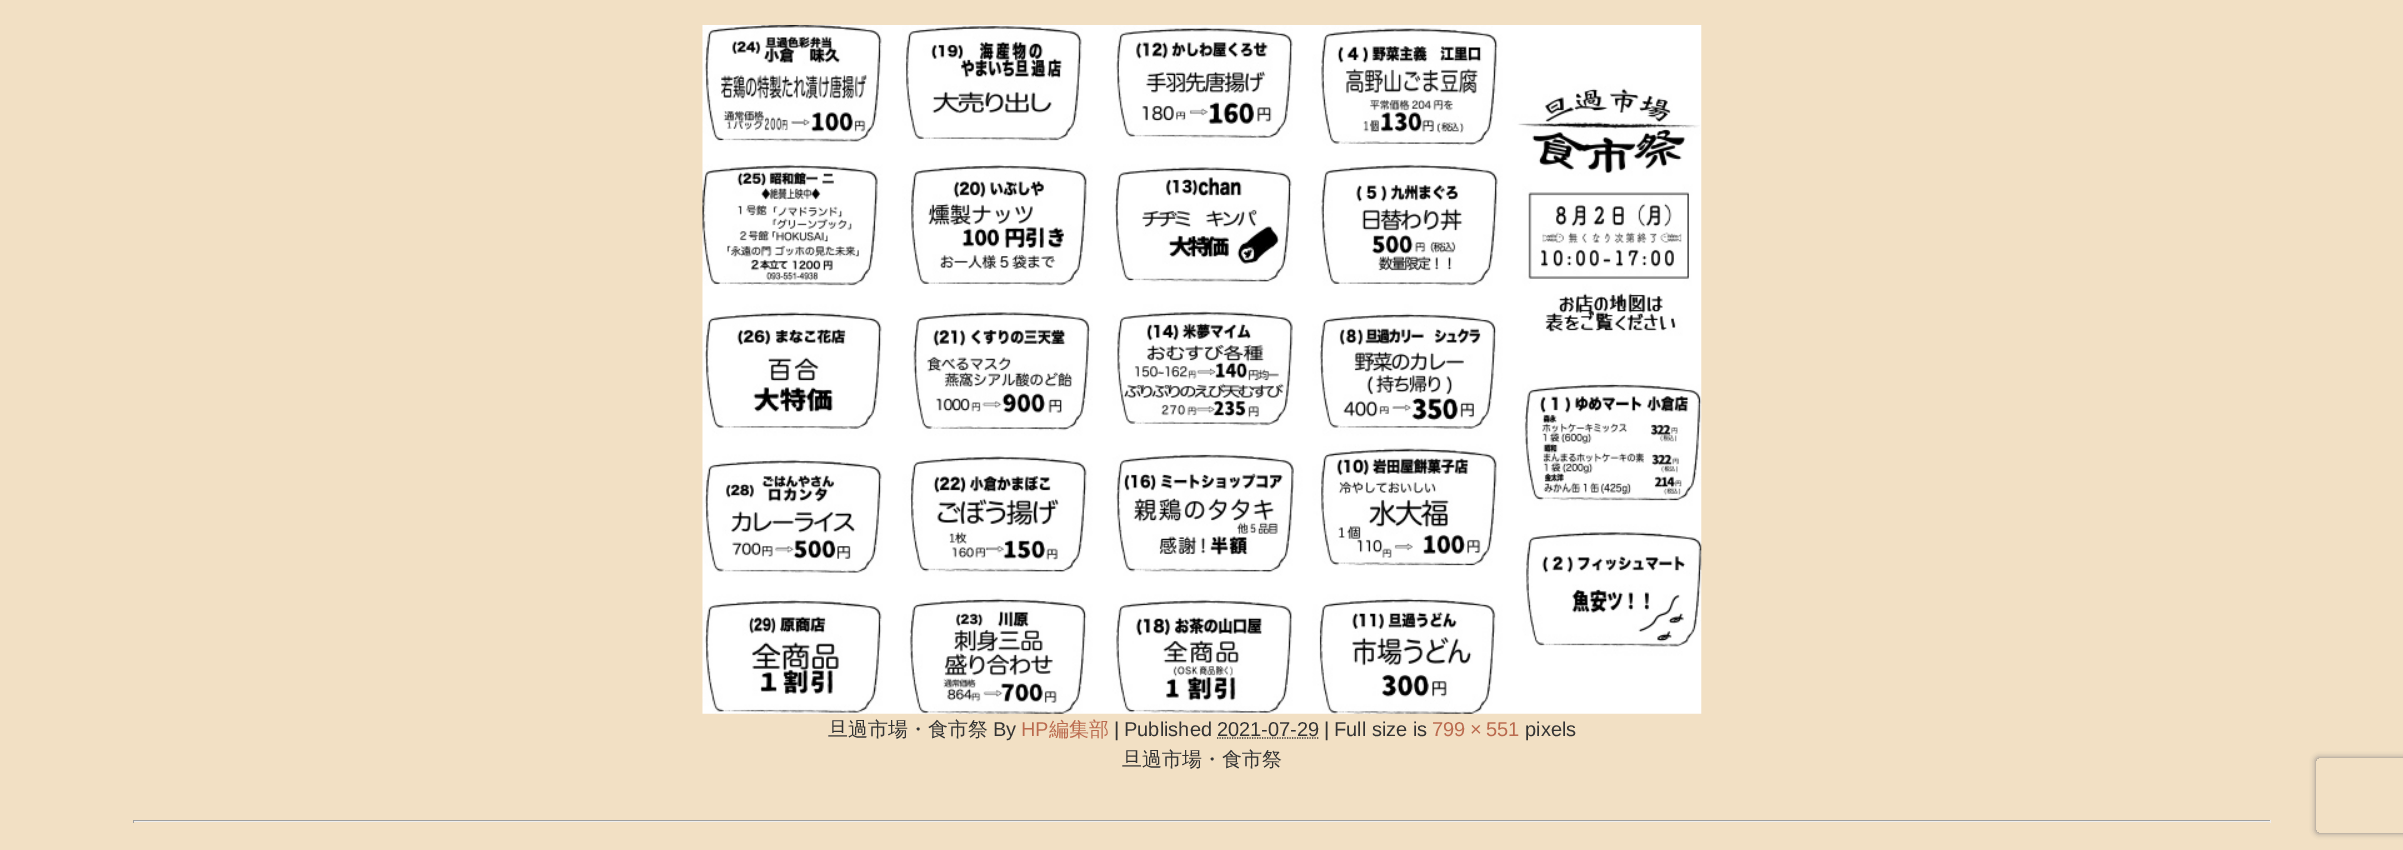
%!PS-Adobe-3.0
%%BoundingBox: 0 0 2403 850
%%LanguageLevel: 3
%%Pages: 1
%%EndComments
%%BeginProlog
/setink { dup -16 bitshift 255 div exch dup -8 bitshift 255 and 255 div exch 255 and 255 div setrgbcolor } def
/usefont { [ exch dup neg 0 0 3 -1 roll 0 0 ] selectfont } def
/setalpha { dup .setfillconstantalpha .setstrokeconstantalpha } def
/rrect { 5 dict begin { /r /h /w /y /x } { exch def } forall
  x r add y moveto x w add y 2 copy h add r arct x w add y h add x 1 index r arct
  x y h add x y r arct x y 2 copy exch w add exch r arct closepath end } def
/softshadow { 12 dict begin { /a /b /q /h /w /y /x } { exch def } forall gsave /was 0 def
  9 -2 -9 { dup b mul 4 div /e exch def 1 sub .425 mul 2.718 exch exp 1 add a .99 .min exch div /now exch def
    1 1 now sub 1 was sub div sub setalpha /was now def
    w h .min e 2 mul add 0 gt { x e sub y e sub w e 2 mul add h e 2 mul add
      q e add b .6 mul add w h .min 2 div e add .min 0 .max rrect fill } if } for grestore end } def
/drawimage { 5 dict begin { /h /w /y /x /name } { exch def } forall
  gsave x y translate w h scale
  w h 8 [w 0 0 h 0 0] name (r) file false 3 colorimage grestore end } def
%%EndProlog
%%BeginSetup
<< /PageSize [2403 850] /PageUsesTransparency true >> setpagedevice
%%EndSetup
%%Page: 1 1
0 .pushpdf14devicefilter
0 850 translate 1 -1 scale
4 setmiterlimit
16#F2E0C4 setink
0 0 2403 850 rectfill
(img1.raw) 702 25 1000 689 drawimage
/WenQuanYiZenHei-Medium 20 usefont
16#333333 setink
828 736 moveto (旦過市場・食市祭) show
/LiberationSans-Regular 20 usefont
993 736 moveto (By) show
16#BA6A4E setink
1021 736 moveto (HP) show
/WenQuanYiZenHei-Medium 20 usefont
1049 736 moveto (編集部) show
/LiberationSans-Regular 20 usefont
16#333333 setink
[
    [(|) 1114 736]
    [(Published) 1124 736]
    [(2021-07-29) 1217 736]
] { aload pop moveto show } forall
1.2 setlinewidth
[1.25 1.25] 0 setdash
1217 738 moveto 1319 738 lineto stroke
1324 736 moveto (|) show
1334 736 moveto (Full size is) show
16#BA6A4E setink
1432 736 moveto -1 0 32 (799 × 551) widthshow
16#333333 setink
1525 736 moveto (pixels) show
/WenQuanYiZenHei-Medium 20 usefont
1122 766 moveto (旦過市場・食市祭) show
[
    [133 820 2138 1 16#9F9F9F]
    [2270 820 1 3 16#EEEEEE]
    [133 821 2138 1 16#EEEEEE]
    [133 820 1 3 16#9F9F9F]
] { aload pop setink rectfill } forall
gsave
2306 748 moveto 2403 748 lineto 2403 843 lineto 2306 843 lineto closepath 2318.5 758 moveto 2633.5 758 lineto 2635 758 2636 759 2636 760.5 curveto 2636 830.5 lineto 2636 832 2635 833 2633.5 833 curveto 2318.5 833 lineto 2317 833 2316 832 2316 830.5 curveto 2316 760.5 lineto 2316 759 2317 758 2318.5 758 curveto closepath eoclip newpath
16#808080 setink
2316 758 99 75 2.5 3 1 softshadow
grestore
.poppdf14devicefilter showpage
%%EOF
